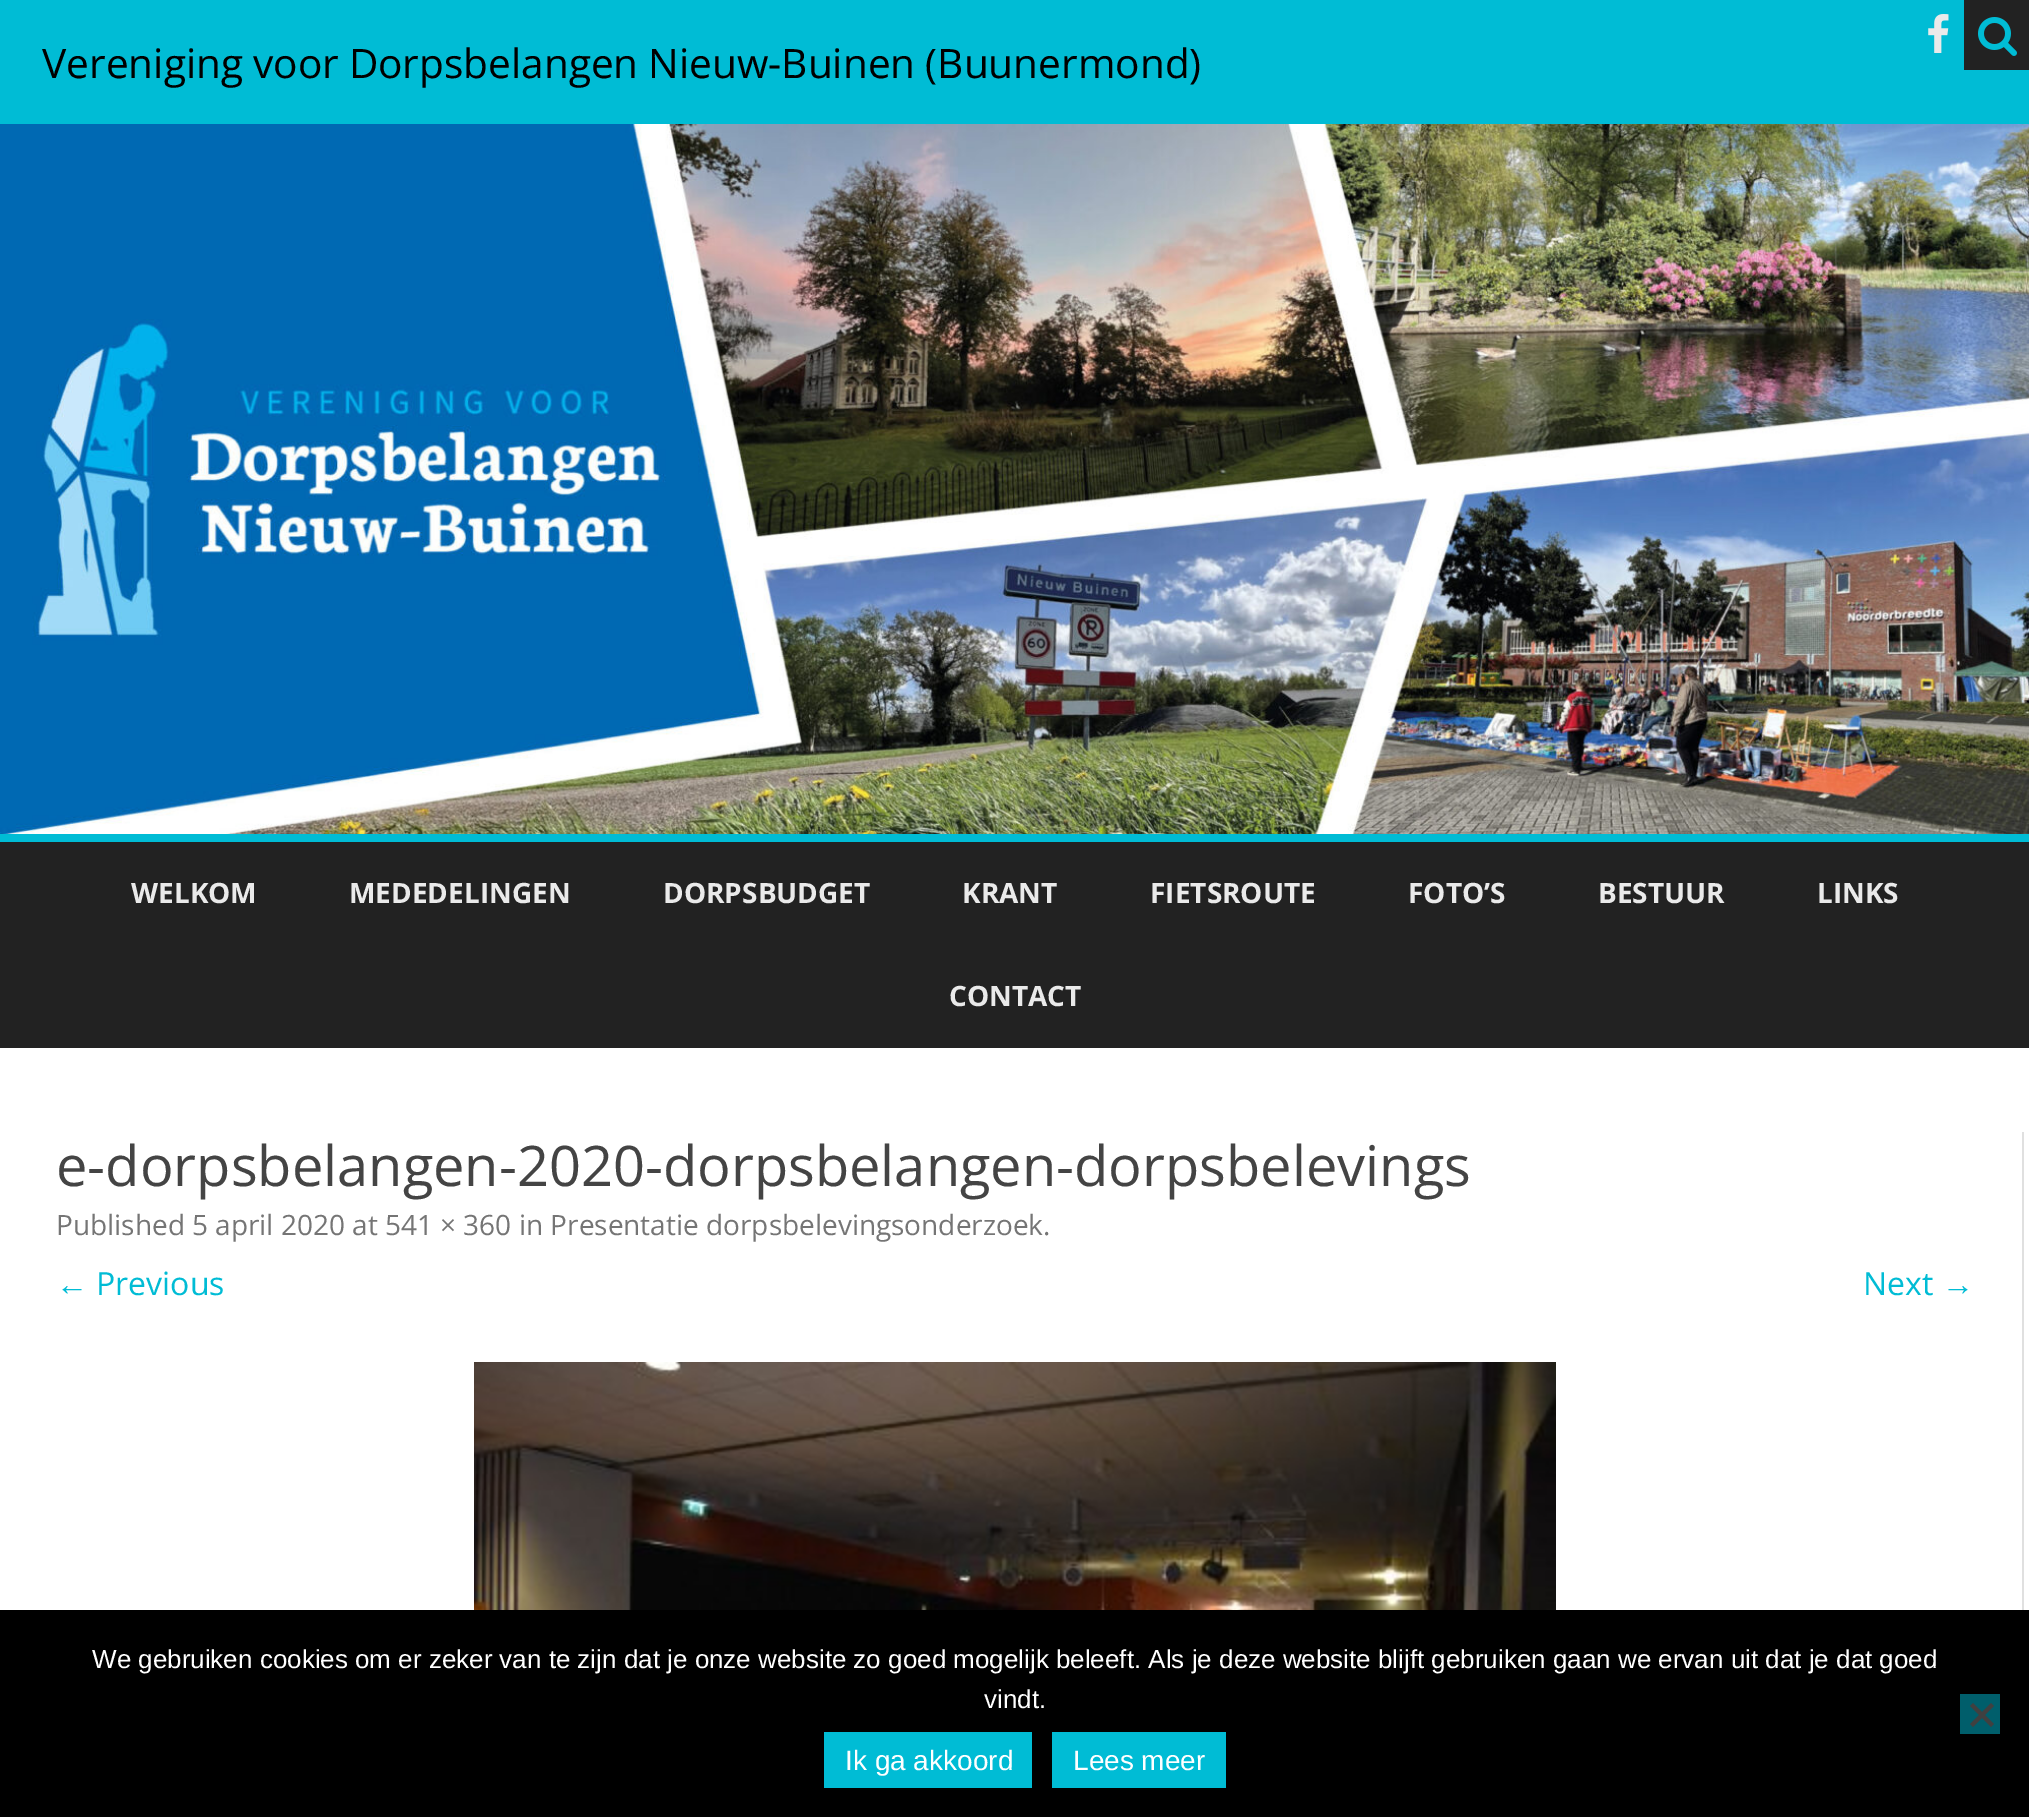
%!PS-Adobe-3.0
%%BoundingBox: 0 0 2029 1817
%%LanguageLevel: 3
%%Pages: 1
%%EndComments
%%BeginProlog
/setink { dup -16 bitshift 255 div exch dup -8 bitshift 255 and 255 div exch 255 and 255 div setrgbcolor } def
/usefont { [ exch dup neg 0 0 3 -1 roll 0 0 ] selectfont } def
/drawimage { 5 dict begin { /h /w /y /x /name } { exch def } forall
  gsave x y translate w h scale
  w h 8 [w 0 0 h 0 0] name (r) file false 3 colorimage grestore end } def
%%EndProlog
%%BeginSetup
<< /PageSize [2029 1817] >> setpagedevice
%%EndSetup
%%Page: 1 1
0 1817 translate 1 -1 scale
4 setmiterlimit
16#FFFFFF setink
0 0 2029 1817 rectfill
16#00BCD5 setink
0 0 2029 124 rectfill
(img1.raw) 1928 14 21 39 drawimage
16#222222 setink
1964 0 65 70 rectfill
(img2.raw) 1978 17 39 39 drawimage
/OpenSans-Regular 40.6 usefont
16#000000 setink
42 78 moveto -0.5 0 32 (Vereniging voor Dorpsbelangen Nieuw-Buinen \(Buunermond\)) widthshow
16#00BCD5 setink
0 834 2029 8 rectfill
(img3.raw) 0 124 2029 710 drawimage
16#222222 setink
0 842 2029 206 rectfill
/OpenSans-Bold 28 usefont
16#EAEAEA setink
[
    [(WELKOM) 131 903]
    [(MEDEDELINGEN) 349 903]
    [(DORPSBUDGET) 663 903]
    [(KRANT) 962 903]
    [(FIETSROUTE) 1150 903]
    [(FOTO’S) 1408 903]
    [(BESTUUR) 1598 903]
    [(LINKS) 1817 903]
    [(CONTACT) 949 1006]
] { aload pop moveto show } forall
16#E0E0E0 setink
2022 1132 2 478 rectfill
/OpenSans-Regular 56 usefont
16#444444 setink
56 1186 moveto (e-dorpsbelangen-2020-dorpsbelangen-dorpsbelevings) show
/OpenSans-Regular 28 usefont
16#757575 setink
56 1235 moveto (Published 5 april 2020 at 541 × 360 in Presentatie dorpsbelevingsonderzoek.) show
/LiberationSans-Regular 32 usefont
16#00BCD5 setink
56 1295 moveto (←) show
/OpenSans-Regular 32 usefont
96 1295 moveto (Previous) show
1863 1295 moveto (Next) show
/LiberationSans-Regular 32 usefont
1942 1295 moveto (→) show
(img4.raw) 474 1362 1082 248 drawimage
16#000000 setink
0 1610 2029 207 rectfill
/LiberationSans-Regular 26 usefont
16#FFFFFF setink
92 1668 moveto (We gebruiken cookies om er zeker van te zijn dat je onze website zo goed mogelijk beleeft. Als je deze website blijft gebruiken gaan we ervan uit dat je dat goed) show
984 1708 moveto (vindt.) show
16#005E6B setink
1960 1694 40 40 rectfill
16#404040 setink
1991 1703 moveto 1994 1706 lineto 1973 1727 lineto 1970 1724 lineto closepath fill
1970 1706 moveto 1973 1703 lineto 1994 1724 lineto 1991 1727 lineto closepath fill
16#00BCD5 setink
824 1732 208 56 rectfill
/LiberationSans-Regular 28 usefont
16#FFFFFF setink
845 1770 moveto (Ik ga akkoord) show
16#00BCD5 setink
1052 1732 174 56 rectfill
16#FFFFFF setink
1073 1770 moveto (Lees meer) show
showpage
%%EOF
